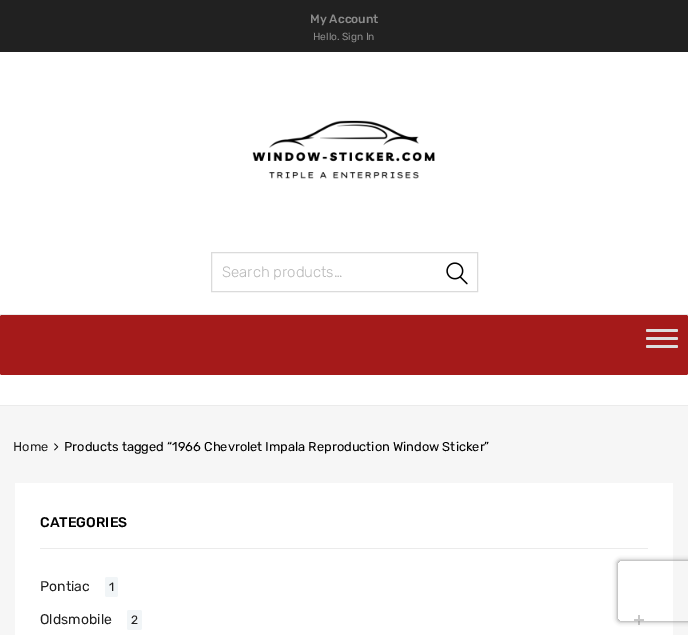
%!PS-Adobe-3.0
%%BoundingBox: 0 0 688 635
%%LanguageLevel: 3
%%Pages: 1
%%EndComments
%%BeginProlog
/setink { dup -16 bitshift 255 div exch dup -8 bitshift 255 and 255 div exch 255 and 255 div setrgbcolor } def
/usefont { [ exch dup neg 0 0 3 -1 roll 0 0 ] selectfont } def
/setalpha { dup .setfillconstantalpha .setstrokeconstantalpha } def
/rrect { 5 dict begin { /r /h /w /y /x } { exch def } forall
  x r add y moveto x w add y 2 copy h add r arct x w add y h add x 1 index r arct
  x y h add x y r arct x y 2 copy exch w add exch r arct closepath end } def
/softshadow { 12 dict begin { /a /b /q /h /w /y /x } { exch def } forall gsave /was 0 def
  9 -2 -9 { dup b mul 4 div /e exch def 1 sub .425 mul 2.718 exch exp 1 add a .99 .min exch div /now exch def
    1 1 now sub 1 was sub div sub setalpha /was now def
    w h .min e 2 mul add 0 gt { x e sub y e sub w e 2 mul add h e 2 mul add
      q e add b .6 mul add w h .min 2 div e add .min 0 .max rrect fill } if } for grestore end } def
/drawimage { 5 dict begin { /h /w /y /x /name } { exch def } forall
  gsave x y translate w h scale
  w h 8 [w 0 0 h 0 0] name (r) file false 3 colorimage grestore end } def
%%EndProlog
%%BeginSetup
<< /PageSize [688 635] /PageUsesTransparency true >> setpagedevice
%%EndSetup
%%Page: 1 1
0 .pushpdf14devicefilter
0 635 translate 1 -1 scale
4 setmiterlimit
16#F6F6F6 setink
0 0 688 635 rectfill
16#FFFFFF setink
0 52 688 353 rectfill
16#212121 setink
0 0 688 52 rectfill
/Rubik-Medium 12 usefont
16#8B8B8B setink
310 23 moveto (My Account) show
/Rubik-Regular 10.25 usefont
313 40 moveto (Hello. Sign In) show
(img1.raw) 252 120 183 59 drawimage
16#DBDBDB setink
211.5 252.5 266 39 rectstroke
/Rubik-Light 15 usefont
16#B9B9B9 setink
222 277 moveto (Search products…) show
(img2.raw) 446 262 22 23 drawimage
16#EBEBEB setink
0 314 688 1 rectfill
0 405 688 1 rectfill
16#A51A1A setink
0 315 688 60 2 rrect fill
16#DDDDDD setink
646 329 32 3 1.5 rrect fill
646 337 32 3 1.5 rrect fill
646 345 32 3 1.5 rrect fill
/Rubik-Regular 12.85 usefont
16#212121 setink
13 451 moveto (Home) show
(img3.raw) 54 443 5 8 drawimage
16#000000 setink
64 451 moveto (Products tagged “1966 Chevrolet Impala Reproduction Window Sticker”) show
16#FFFFFF setink
15 483 658 152 rectfill
16#EBEBEB setink
40 548 608 1 rectfill
/Rubik-Medium 14 usefont
16#000000 setink
40 527 moveto (CATEGORIES) show
/Rubik-Regular 14 usefont
16#212121 setink
40 591 moveto (Pontiac) show
16#F1F5F7 setink
105 577 13 20 2 rrect fill
/Rubik-Regular 12 usefont
16#212121 setink
109 591 moveto (1) show
/Rubik-Regular 14 usefont
40 624 moveto (Oldsmobile) show
16#F1F5F7 setink
127 610 15 20 2 rrect fill
/Rubik-Regular 12 usefont
16#212121 setink
131 624 moveto (2) show
16#C7C7C7 setink
634 619 10 2 rectfill
638 615 2 10 rectfill
gsave
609 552 moveto 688 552 lineto 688 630 lineto 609 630 lineto closepath 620 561 moveto 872 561 lineto 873 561 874 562 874 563 curveto 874 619 lineto 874 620 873 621 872 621 curveto 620 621 lineto 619 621 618 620 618 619 curveto 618 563 lineto 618 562 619 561 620 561 curveto closepath eoclip newpath
16#808080 setink
618 561 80 60 2 2.5 1 softshadow
grestore
.poppdf14devicefilter showpage
%%EOF
